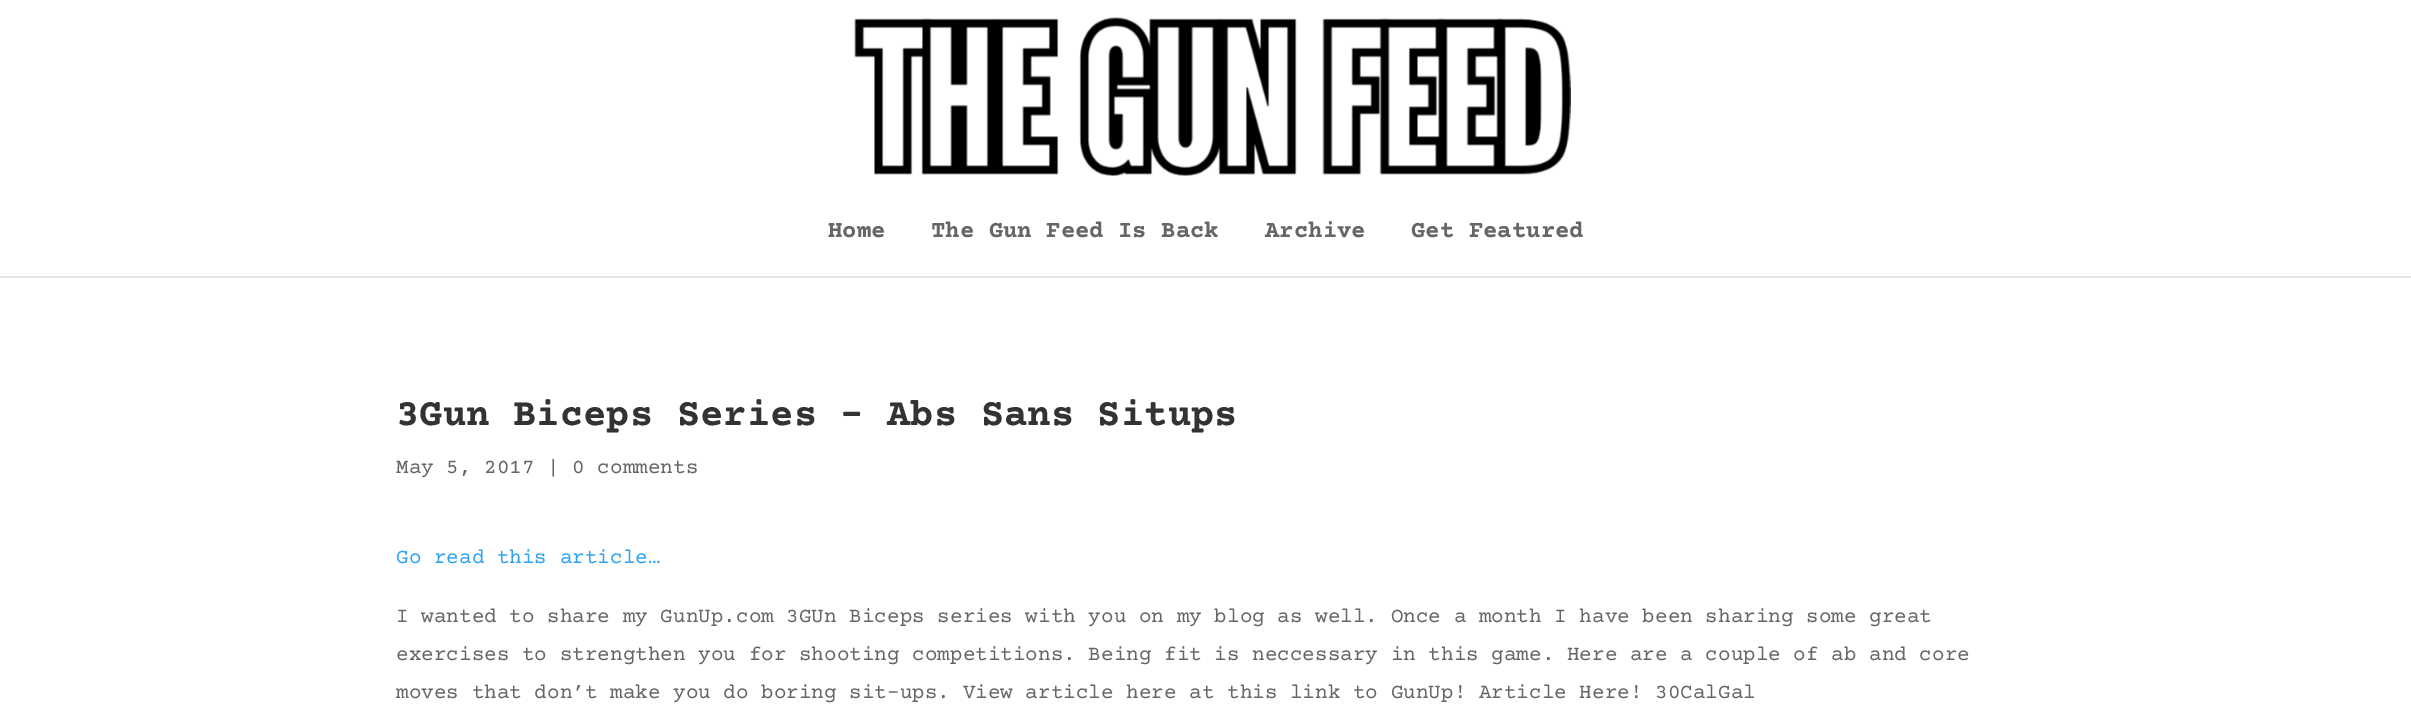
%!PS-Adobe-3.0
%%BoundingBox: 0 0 2411 708
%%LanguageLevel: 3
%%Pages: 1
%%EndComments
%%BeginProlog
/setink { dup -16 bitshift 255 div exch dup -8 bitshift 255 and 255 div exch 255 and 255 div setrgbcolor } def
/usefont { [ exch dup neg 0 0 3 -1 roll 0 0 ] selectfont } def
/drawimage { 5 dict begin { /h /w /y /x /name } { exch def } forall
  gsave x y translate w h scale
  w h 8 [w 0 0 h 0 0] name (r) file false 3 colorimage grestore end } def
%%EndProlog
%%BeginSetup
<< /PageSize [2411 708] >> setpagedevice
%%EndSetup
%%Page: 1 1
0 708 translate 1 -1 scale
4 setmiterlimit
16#FFFFFF setink
0 0 2411 708 rectfill
16#E6E6E6 setink
0 276 2411 2 rectfill
(img1.raw) 854 17 717 159 drawimage
/CourierPrime-Bold 24 usefont
16#666666 setink
[
    [(Home) 828 237]
    [(The Gun Feed Is Back) 931 237]
    [(Archive) 1265 237]
    [(Get Featured) 1411 237]
] { aload pop moveto show } forall
/CourierPrime-Bold 39 usefont
16#333333 setink
396 425 moveto (3Gun Biceps Series – Abs Sans Situps) show
/CourierPrime-Regular 21 usefont
16#666666 setink
396 473 moveto (May 5, 2017 | 0 comments) show
16#2EA3F2 setink
396 563 moveto (Go read this article…) show
16#666666 setink
[
    [(I wanted to share my GunUp.com 3GUn Biceps series with you on my blog as well. Once a month I have been sharing some great) 396 622]
    [(exercises to strengthen you for shooting competitions. Being fit is neccessary in this game. Here are a couple of ab and core) 396 660]
    [(moves that don’t make you do boring sit-ups. View article here at this link to GunUp! Article Here! 30CalGal) 396 698]
] { aload pop moveto show } forall
showpage
%%EOF
